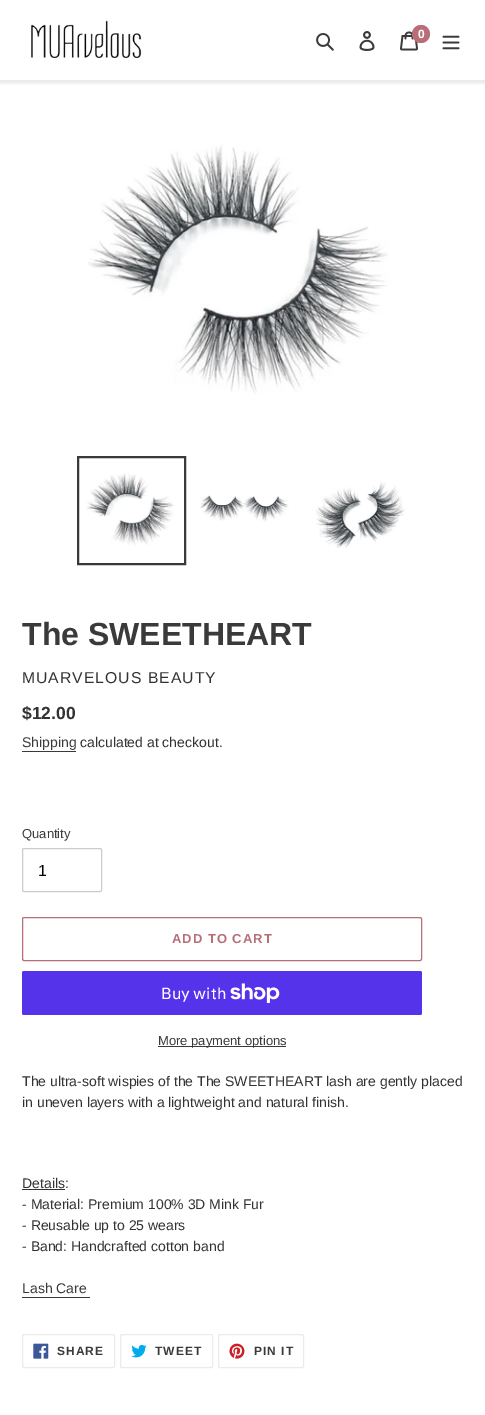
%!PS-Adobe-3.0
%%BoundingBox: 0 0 485 1415
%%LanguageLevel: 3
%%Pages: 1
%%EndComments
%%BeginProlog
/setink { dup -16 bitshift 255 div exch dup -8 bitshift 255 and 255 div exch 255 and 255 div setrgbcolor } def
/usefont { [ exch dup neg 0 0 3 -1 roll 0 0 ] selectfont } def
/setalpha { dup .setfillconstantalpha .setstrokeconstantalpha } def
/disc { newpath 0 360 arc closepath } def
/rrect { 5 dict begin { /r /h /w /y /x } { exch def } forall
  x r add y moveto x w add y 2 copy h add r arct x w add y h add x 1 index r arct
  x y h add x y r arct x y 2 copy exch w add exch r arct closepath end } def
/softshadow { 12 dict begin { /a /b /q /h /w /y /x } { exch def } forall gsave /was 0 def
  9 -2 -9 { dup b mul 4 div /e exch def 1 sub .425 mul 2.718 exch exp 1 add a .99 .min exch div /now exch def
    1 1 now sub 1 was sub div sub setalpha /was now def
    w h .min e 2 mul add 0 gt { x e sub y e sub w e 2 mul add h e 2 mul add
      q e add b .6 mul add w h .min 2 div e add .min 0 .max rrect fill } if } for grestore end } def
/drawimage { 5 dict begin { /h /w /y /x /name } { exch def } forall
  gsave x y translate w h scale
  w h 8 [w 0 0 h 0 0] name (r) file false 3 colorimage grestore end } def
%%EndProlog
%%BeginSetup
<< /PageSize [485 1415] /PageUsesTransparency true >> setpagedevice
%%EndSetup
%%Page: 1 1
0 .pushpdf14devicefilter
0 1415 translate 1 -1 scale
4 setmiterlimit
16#FFFFFF setink
0 0 485 1415 rectfill
gsave
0 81 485 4 rectclip
16#000000 setink
0 2 485 81 0 2 0.1 softshadow
grestore
16#EBEBEB setink
0 80 485 1 rectfill
(img1.raw) 31 20 111 39 drawimage
(img2.raw) 316 33 18 18 drawimage
(img3.raw) 359 31 16 20 drawimage
(img4.raw) 400 31 18 20 drawimage
16#B76E79 setink
421 34 9 disc fill
/LiberationSans-Bold 12 usefont
16#FFFFFF setink
418 38 moveto (0) show
(img5.raw) 442 35 18 15 drawimage
(img6.raw) 87 144 302 251 drawimage
16#3A3A3A setink
2 setlinewidth
78 457 107 107 rectstroke
(img7.raw) 86 473 88 73 drawimage
(img8.raw) 200 495 89 27 drawimage
(img9.raw) 316 482 89 66 drawimage
/LiberationSans-Bold 32 usefont
22 645 moveto (The SWEETHEART) show
/LiberationSans-Regular 15.75 usefont
16#333232 setink
22 683 moveto 1 0 (MUARVELOUS BEAUTY) ashow
/LiberationSans-Bold 17.5 usefont
22 719 moveto ($12.00) show
/LiberationSans-Regular 14 usefont
16#3A3A3A setink
22 747 moveto (Shipping) show
22 751 54 1 rectfill
16#333232 setink
80 747 moveto (calculated at checkout.) show
/LiberationSans-Regular 13 usefont
16#3A3A3A setink
22 838 moveto (Quantity) show
16#CCCCCC setink
1 setlinewidth
22.5 848.5 79 43 1.5 rrect stroke
/LiberationSans-Regular 16 usefont
16#000000 setink
38 876 moveto (1) show
16#B76E79 setink
22.5 917.5 399 43 1.5 rrect stroke
/LiberationSans-Bold 13 usefont
172 943 moveto 1 0 (ADD TO CART) ashow
16#5433EB setink
22 971 400 44 2 rrect fill
/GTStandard-Regular 16 usefont
16#FFFFFF setink
161 999 moveto (Buy with) show
(img10.raw) 230 983 50 20 drawimage
16#3A3A3A setink
158 1046 128 1 rectfill
/LiberationSans-Regular 13 usefont
158 1045 moveto (More payment options) show
/LiberationSans-Regular 14 usefont
16#333232 setink
[
    [(The ultra-soft wispies of the The SWEETHEART lash are gently placed) 22 1086]
    [(in uneven layers with a lightweight and natural finish.) 22 1107]
    [(Details:) 22 1188]
] { aload pop moveto show } forall
22 1189 43 1 rectfill
[
    [(- Material: Premium 100% 3D Mink Fur) 22 1209]
    [(- Reusable up to 25 wears) 22 1230]
    [(- Band: Handcrafted cotton band) 22 1251]
] { aload pop moveto show } forall
16#3A3A3A setink
22 1293 moveto (Lash Care) show
22 1297 68 1 rectfill
16#EBEBEB setink
22.5 1334.5 92 33 1.5 rrect stroke
(img11.raw) 33 1343 16 16 drawimage
/LiberationSans-Bold 12 usefont
16#3A3A3A setink
57 1355 moveto 1 0 (SHARE) ashow
16#EBEBEB setink
120.5 1334.5 92 33 1.5 rrect stroke
(img12.raw) 131 1344 16 14 drawimage
16#3A3A3A setink
155 1355 moveto 1 0 (TWEET) ashow
16#EBEBEB setink
218.5 1334.5 85 33 1.5 rrect stroke
(img13.raw) 229 1343 16 16 drawimage
16#3A3A3A setink
254 1355 moveto 1 0 (PIN IT) ashow
.poppdf14devicefilter showpage
%%EOF
